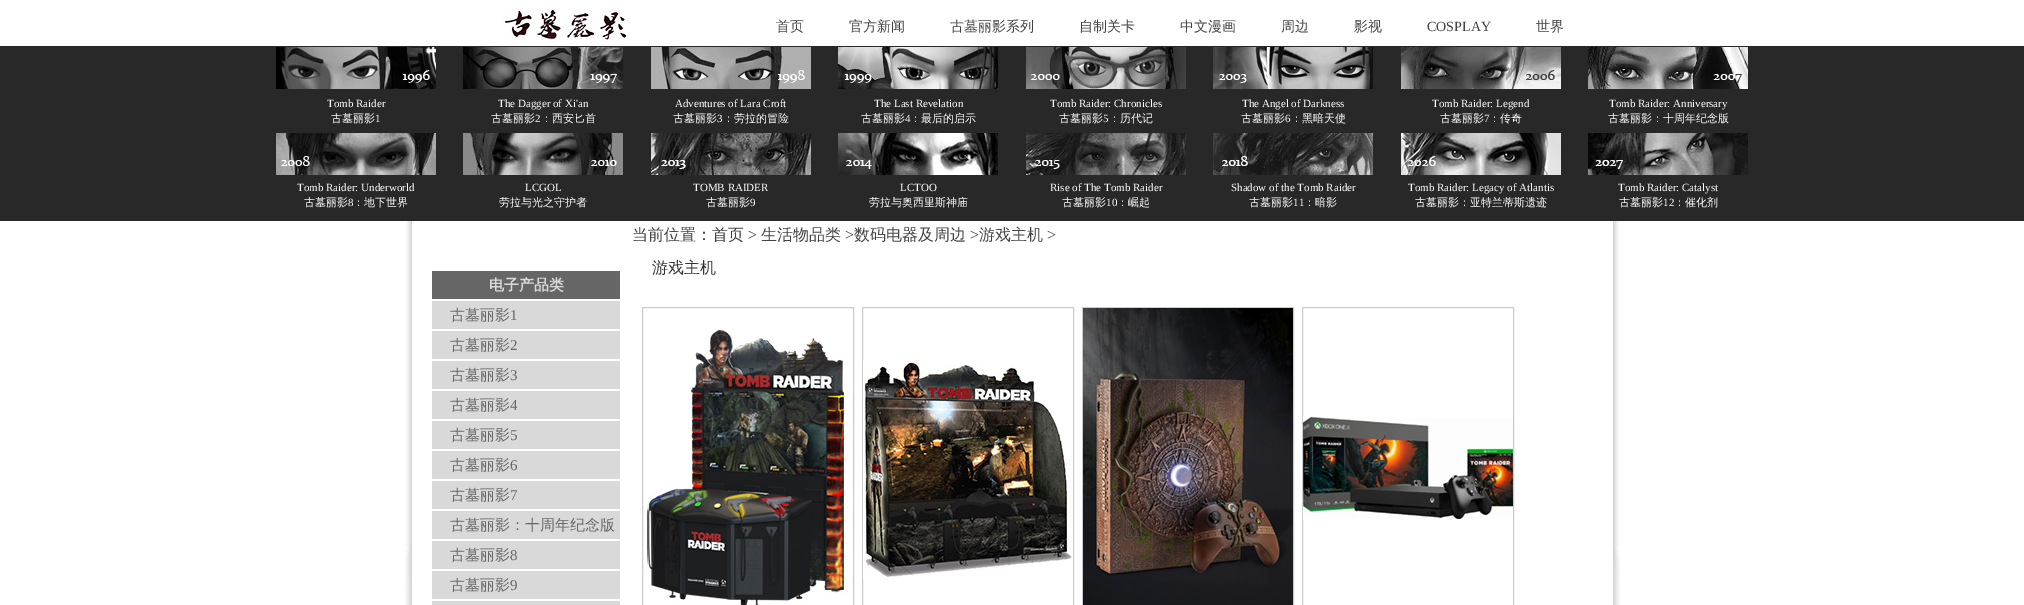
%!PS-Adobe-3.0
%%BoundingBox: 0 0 2024 605
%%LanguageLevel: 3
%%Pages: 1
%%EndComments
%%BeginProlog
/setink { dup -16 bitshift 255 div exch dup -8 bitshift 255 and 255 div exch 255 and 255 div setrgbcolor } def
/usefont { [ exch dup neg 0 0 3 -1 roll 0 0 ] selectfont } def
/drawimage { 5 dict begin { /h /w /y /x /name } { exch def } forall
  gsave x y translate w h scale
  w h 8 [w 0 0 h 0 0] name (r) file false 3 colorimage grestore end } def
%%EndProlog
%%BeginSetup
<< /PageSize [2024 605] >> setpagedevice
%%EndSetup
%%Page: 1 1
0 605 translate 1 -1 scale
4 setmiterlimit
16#FFFFFF setink
0 0 2024 605 rectfill
(img1.raw) 405 221 1215 384 drawimage
(img2.raw) 503 8 127 32 drawimage
/WenQuanYiZenHei-Medium 14 usefont
16#434343 setink
[
    [(首页) 776 31]
    [(官方新闻) 849 31]
    [(古墓丽影系列) 950 31]
    [(自制关卡) 1079 31]
    [(中文漫画) 1180 31]
    [(周边) 1281 31]
    [(影视) 1354 31]
] { aload pop moveto show } forall
/LiberationSerif-Regular 14 usefont
1427 31 moveto (COSPLAY) show
/WenQuanYiZenHei-Medium 14 usefont
1536 31 moveto (世界) show
16#282828 setink
0 46 2024 175 rectfill
(img3.raw) 276 47 160 42 drawimage
(img4.raw) 463 47 160 42 drawimage
(img5.raw) 651 47 160 42 drawimage
(img6.raw) 838 47 160 42 drawimage
(img7.raw) 1026 47 160 42 drawimage
(img8.raw) 1213 47 160 42 drawimage
(img9.raw) 1401 47 160 42 drawimage
(img10.raw) 1588 47 160 42 drawimage
/LiberationSerif-Regular 11 usefont
16#FFFFFF setink
327 107 moveto (Tomb Raider) show
/WenQuanYiZenHei-Medium 11 usefont
331 122 moveto (古墓丽影) show
/LiberationSerif-Regular 11 usefont
375 122 moveto (1) show
498 107 moveto (The Dagger of Xi'an) show
/WenQuanYiZenHei-Medium 11 usefont
491 122 moveto (古墓丽影) show
/LiberationSerif-Regular 11 usefont
535 122 moveto (2) show
/WenQuanYiZenHei-Medium 11 usefont
541 122 moveto (：西安匕首) show
/LiberationSerif-Regular 11 usefont
675 107 moveto (Adventures of Lara Croft) show
/WenQuanYiZenHei-Medium 11 usefont
673 122 moveto (古墓丽影) show
/LiberationSerif-Regular 11 usefont
717 122 moveto (3) show
/WenQuanYiZenHei-Medium 11 usefont
723 122 moveto (：劳拉的冒险) show
/LiberationSerif-Regular 11 usefont
874 107 moveto (The Last Revelation) show
/WenQuanYiZenHei-Medium 11 usefont
861 122 moveto (古墓丽影) show
/LiberationSerif-Regular 11 usefont
905 122 moveto (4) show
/WenQuanYiZenHei-Medium 11 usefont
910 122 moveto (：最后的启示) show
/LiberationSerif-Regular 11 usefont
1050 107 moveto (Tomb Raider: Chronicles) show
/WenQuanYiZenHei-Medium 11 usefont
1059 122 moveto (古墓丽影) show
/LiberationSerif-Regular 11 usefont
1103 122 moveto (5) show
/WenQuanYiZenHei-Medium 11 usefont
1109 122 moveto (：历代记) show
/LiberationSerif-Regular 11 usefont
1242 107 moveto (The Angel of Darkness) show
/WenQuanYiZenHei-Medium 11 usefont
1241 122 moveto (古墓丽影) show
/LiberationSerif-Regular 11 usefont
1285 122 moveto (6) show
/WenQuanYiZenHei-Medium 11 usefont
1291 122 moveto (：黑暗天使) show
/LiberationSerif-Regular 11 usefont
1432 107 moveto (Tomb Raider: Legend) show
/WenQuanYiZenHei-Medium 11 usefont
1440 122 moveto (古墓丽影) show
/LiberationSerif-Regular 11 usefont
1484 122 moveto (7) show
/WenQuanYiZenHei-Medium 11 usefont
1489 122 moveto (：传奇) show
/LiberationSerif-Regular 11 usefont
1609 107 moveto (Tomb Raider: Anniversary) show
/WenQuanYiZenHei-Medium 11 usefont
1608 122 moveto (古墓丽影：十周年纪念版) show
(img11.raw) 276 133 160 42 drawimage
(img12.raw) 463 133 160 42 drawimage
(img13.raw) 651 133 160 42 drawimage
(img14.raw) 838 133 160 42 drawimage
(img15.raw) 1026 133 160 42 drawimage
(img16.raw) 1213 133 160 42 drawimage
(img17.raw) 1401 133 160 42 drawimage
(img18.raw) 1588 133 160 42 drawimage
/LiberationSerif-Regular 11 usefont
297 191 moveto (Tomb Raider: Underworld) show
/WenQuanYiZenHei-Medium 11 usefont
304 206 moveto (古墓丽影) show
/LiberationSerif-Regular 11 usefont
348 206 moveto (8) show
/WenQuanYiZenHei-Medium 11 usefont
353 206 moveto (：地下世界) show
/LiberationSerif-Regular 11 usefont
525 191 moveto (LCGOL) show
/WenQuanYiZenHei-Medium 11 usefont
499 206 moveto (劳拉与光之守护者) show
/LiberationSerif-Regular 11 usefont
693 191 moveto (TOMB RAIDER) show
/WenQuanYiZenHei-Medium 11 usefont
706 206 moveto (古墓丽影) show
/LiberationSerif-Regular 11 usefont
750 206 moveto (9) show
900 191 moveto (LCTOO) show
/WenQuanYiZenHei-Medium 11 usefont
869 206 moveto (劳拉与奥西里斯神庙) show
/LiberationSerif-Regular 11 usefont
1050 191 moveto (Rise of The Tomb Raider) show
/WenQuanYiZenHei-Medium 11 usefont
1062 206 moveto (古墓丽影) show
/LiberationSerif-Regular 11 usefont
1106 206 moveto (10) show
/WenQuanYiZenHei-Medium 11 usefont
1117 206 moveto (：崛起) show
/LiberationSerif-Regular 11 usefont
1231 191 moveto (Shadow of the Tomb Raider) show
/WenQuanYiZenHei-Medium 11 usefont
1249 206 moveto (古墓丽影) show
/LiberationSerif-Regular 11 usefont
1293 206 moveto (11) show
/WenQuanYiZenHei-Medium 11 usefont
1304 206 moveto (：暗影) show
/LiberationSerif-Regular 11 usefont
1408 191 moveto (Tomb Raider: Legacy of Atlantis) show
/WenQuanYiZenHei-Medium 11 usefont
1415 206 moveto (古墓丽影：亚特兰蒂斯遗迹) show
/LiberationSerif-Regular 11 usefont
1618 191 moveto (Tomb Raider: Catalyst) show
/WenQuanYiZenHei-Medium 11 usefont
1619 206 moveto (古墓丽影) show
/LiberationSerif-Regular 11 usefont
1663 206 moveto (12) show
/WenQuanYiZenHei-Medium 11 usefont
1674 206 moveto (：催化剂) show
/WenQuanYiZenHei-Medium 16 usefont
16#434343 setink
632 240 moveto (当前位置：首页) show
/LiberationSerif-Regular 16 usefont
748 240 moveto (>) show
/WenQuanYiZenHei-Medium 16 usefont
761 240 moveto (生活物品类) show
/LiberationSerif-Regular 16 usefont
845 240 moveto (>) show
/WenQuanYiZenHei-Medium 16 usefont
854 240 moveto (数码电器及周边) show
/LiberationSerif-Regular 16 usefont
970 240 moveto (>) show
/WenQuanYiZenHei-Medium 16 usefont
979 240 moveto (游戏主机) show
/LiberationSerif-Regular 16 usefont
1047 240 moveto (>) show
/WenQuanYiZenHei-Medium 16 usefont
16#333333 setink
652 273 moveto (游戏主机) show
16#CCCCCC setink
642.5 307.5 211 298 rectstroke
(img19.raw) 645 329 206 276 drawimage
862.5 307.5 211 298 rectstroke
(img20.raw) 863 360 209 219 drawimage
1082.5 307.5 211 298 rectstroke
(img21.raw) 1083 308 210 297 drawimage
1302.5 307.5 211 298 rectstroke
(img22.raw) 1303 417 210 103 drawimage
16#666666 setink
432 271 188 28 rectfill
/WenQuanYiZenHei-Bold 15 usefont
16#D9D9D9 setink
489 290 moveto (电子产品类) show
432 301 188 28 rectfill
/WenQuanYiZenHei-Medium 15 usefont
16#666666 setink
450 320 moveto (古墓丽影) show
/LiberationSerif-Regular 15 usefont
510 320 moveto (1) show
16#D9D9D9 setink
432 331 188 28 rectfill
/WenQuanYiZenHei-Medium 15 usefont
16#666666 setink
450 350 moveto (古墓丽影) show
/LiberationSerif-Regular 15 usefont
510 350 moveto (2) show
16#D9D9D9 setink
432 361 188 28 rectfill
/WenQuanYiZenHei-Medium 15 usefont
16#666666 setink
450 380 moveto (古墓丽影) show
/LiberationSerif-Regular 15 usefont
510 380 moveto (3) show
16#D9D9D9 setink
432 391 188 28 rectfill
/WenQuanYiZenHei-Medium 15 usefont
16#666666 setink
450 410 moveto (古墓丽影) show
/LiberationSerif-Regular 15 usefont
510 410 moveto (4) show
16#D9D9D9 setink
432 421 188 28 rectfill
/WenQuanYiZenHei-Medium 15 usefont
16#666666 setink
450 440 moveto (古墓丽影) show
/LiberationSerif-Regular 15 usefont
510 440 moveto (5) show
16#D9D9D9 setink
432 451 188 28 rectfill
/WenQuanYiZenHei-Medium 15 usefont
16#666666 setink
450 470 moveto (古墓丽影) show
/LiberationSerif-Regular 15 usefont
510 470 moveto (6) show
16#D9D9D9 setink
432 481 188 28 rectfill
/WenQuanYiZenHei-Medium 15 usefont
16#666666 setink
450 500 moveto (古墓丽影) show
/LiberationSerif-Regular 15 usefont
510 500 moveto (7) show
16#D9D9D9 setink
432 511 188 28 rectfill
/WenQuanYiZenHei-Medium 15 usefont
16#666666 setink
450 530 moveto (古墓丽影：十周年纪念版) show
16#D9D9D9 setink
432 541 188 28 rectfill
16#666666 setink
450 560 moveto (古墓丽影) show
/LiberationSerif-Regular 15 usefont
510 560 moveto (8) show
16#D9D9D9 setink
432 571 188 28 rectfill
/WenQuanYiZenHei-Medium 15 usefont
16#666666 setink
450 590 moveto (古墓丽影) show
/LiberationSerif-Regular 15 usefont
510 590 moveto (9) show
16#D9D9D9 setink
432 601 188 4 rectfill
showpage
%%EOF
